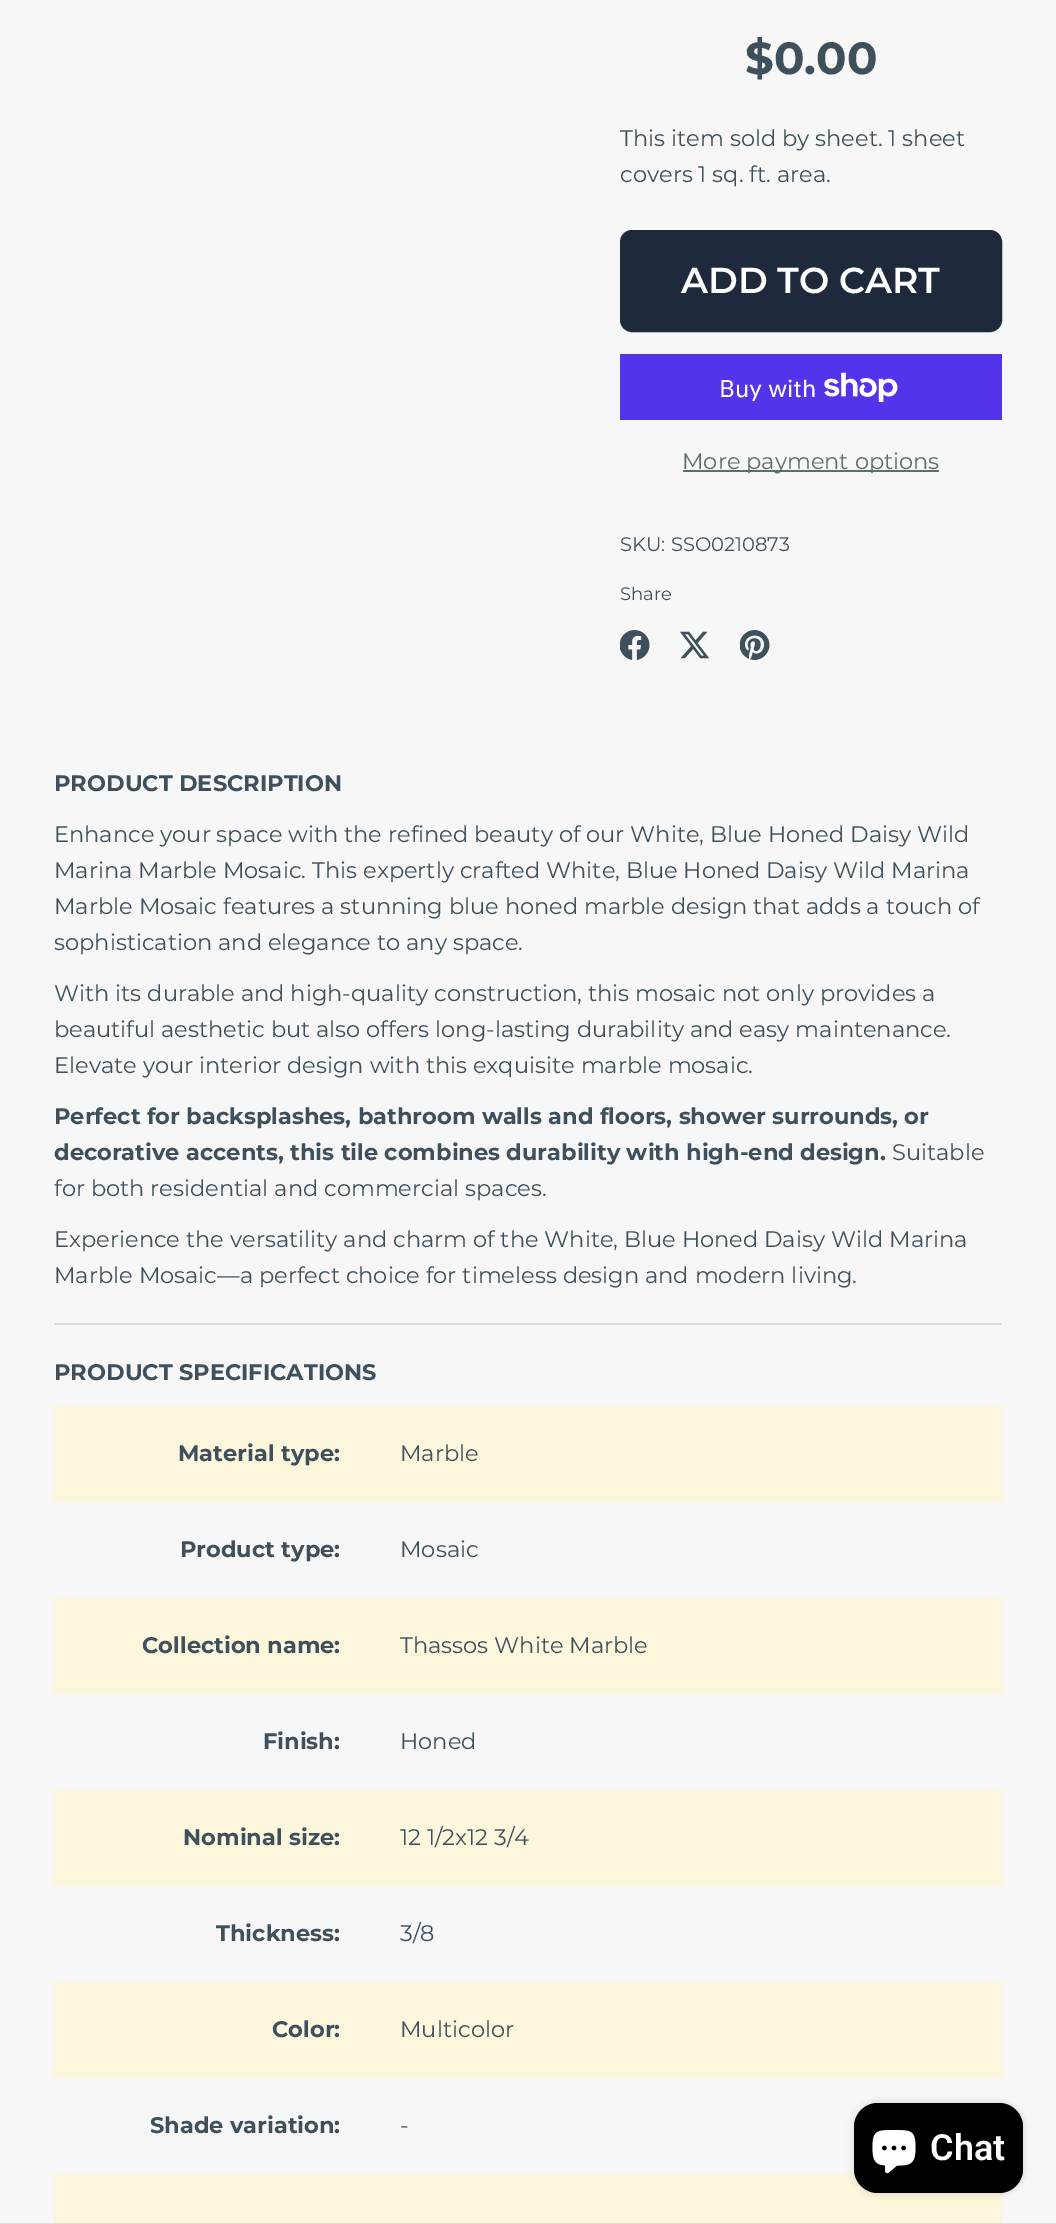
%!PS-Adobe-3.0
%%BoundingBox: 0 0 1056 2224
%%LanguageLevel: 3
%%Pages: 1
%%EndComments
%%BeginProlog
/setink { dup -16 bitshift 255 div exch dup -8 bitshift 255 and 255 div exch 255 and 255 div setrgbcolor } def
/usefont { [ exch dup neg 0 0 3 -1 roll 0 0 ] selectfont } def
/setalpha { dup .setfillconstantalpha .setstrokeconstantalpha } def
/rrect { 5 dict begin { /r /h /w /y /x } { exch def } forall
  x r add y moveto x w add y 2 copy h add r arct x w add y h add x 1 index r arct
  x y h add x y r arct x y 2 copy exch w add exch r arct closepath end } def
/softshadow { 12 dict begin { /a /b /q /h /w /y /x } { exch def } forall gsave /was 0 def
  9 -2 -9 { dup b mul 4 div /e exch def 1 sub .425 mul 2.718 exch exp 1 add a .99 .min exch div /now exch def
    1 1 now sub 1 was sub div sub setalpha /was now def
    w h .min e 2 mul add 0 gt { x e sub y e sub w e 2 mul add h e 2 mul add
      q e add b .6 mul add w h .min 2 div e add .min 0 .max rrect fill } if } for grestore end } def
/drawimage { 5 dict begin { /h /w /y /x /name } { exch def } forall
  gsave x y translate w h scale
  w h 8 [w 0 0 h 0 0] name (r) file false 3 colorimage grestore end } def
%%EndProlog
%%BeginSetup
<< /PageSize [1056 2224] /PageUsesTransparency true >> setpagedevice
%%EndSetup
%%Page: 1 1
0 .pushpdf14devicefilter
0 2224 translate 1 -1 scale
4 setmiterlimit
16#F7F7F7 setink
0 0 1056 2224 rectfill
/Montserrat-Bold 45 usefont
16#3E505C setink
745 74 moveto ($0.00) show
/Montserrat-Regular 22.5 usefont
620 146 moveto (This item sold by sheet. 1 sheet) show
620 182 moveto (covers 1 sq. ft. area.) show
16#1E293B setink
621.5 231.5 379 99 10.5 rrect gsave fill grestore
3 setlinewidth
stroke
/Montserrat-SemiBold 36 usefont
16#FFFFFF setink
681 293 moveto (ADD TO CART) show
16#5433EB setink
620 354 382 66 rectfill
/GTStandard-Regular 24 usefont
16#FFFFFF setink
719 397 moveto (Buy with) show
(img1.raw) 824 372 74 30 drawimage
16#5C6F66 setink
683 470 256 2 rectfill
/Montserrat-Regular 22.5 usefont
682 469 moveto (More payment options) show
/Montserrat-Regular 19.5 usefont
16#3E505C setink
620 551 moveto (SKU: SSO0210873) show
/Montserrat-Regular 18 usefont
620 600 moveto (Share) show
(img2.raw) 620 630 30 30 drawimage
(img3.raw) 680 631 30 28 drawimage
(img4.raw) 740 630 30 30 drawimage
/Montserrat-Bold 22.5 usefont
54 791 moveto (PRODUCT DESCRIPTION) show
/Montserrat-Regular 22.5 usefont
[
    [(Enhance your space with the refined beauty of our White, Blue Honed Daisy Wild) 54 842]
    [(Marina Marble Mosaic. This expertly crafted White, Blue Honed Daisy Wild Marina) 54 878]
    [(Marble Mosaic features a stunning blue honed marble design that adds a touch of) 54 914]
    [(sophistication and elegance to any space.) 54 950]
    [(With its durable and high-quality construction, this mosaic not only provides a) 54 1001]
    [(beautiful aesthetic but also offers long-lasting durability and easy maintenance.) 54 1037]
    [(Elevate your interior design with this exquisite marble mosaic.) 54 1073]
] { aload pop moveto show } forall
/Montserrat-Bold 22.5 usefont
54 1124 moveto (Perfect for backsplashes, bathroom walls and floors, shower surrounds, or) show
54 1160 moveto (decorative accents, this tile combines durability with high-end design.) show
/Montserrat-Regular 22.5 usefont
[
    [(Suitable) 892 1160]
    [(for both residential and commercial spaces.) 54 1196]
    [(Experience the versatility and charm of the White, Blue Honed Daisy Wild Marina) 54 1247]
    [(Marble Mosaic—a perfect choice for timeless design and modern living.) 54 1283]
] { aload pop moveto show } forall
16#DBDEE0 setink
54 1323 948 2 rectfill
/Montserrat-Bold 22.5 usefont
16#3E505C setink
54 1380 moveto (PRODUCT SPECIFICATIONS) show
16#FCF6DC setink
54 1406 948 96 rectfill
16#3E505C setink
178 1461 moveto (Material type:) show
/Montserrat-Regular 22.5 usefont
400 1461 moveto (Marble) show
/Montserrat-Bold 22.5 usefont
180 1557 moveto (Product type:) show
/Montserrat-Regular 22.5 usefont
400 1557 moveto (Mosaic) show
16#FCF6DC setink
54 1598 948 96 rectfill
/Montserrat-Bold 22.5 usefont
16#3E505C setink
142 1653 moveto (Collection name:) show
/Montserrat-Regular 22.5 usefont
400 1653 moveto (Thassos White Marble) show
/Montserrat-Bold 22.5 usefont
263 1749 moveto (Finish:) show
/Montserrat-Regular 22.5 usefont
400 1749 moveto (Honed) show
16#FCF6DC setink
54 1790 948 96 rectfill
/Montserrat-Bold 22.5 usefont
16#3E505C setink
183 1845 moveto (Nominal size:) show
/Montserrat-Regular 22.5 usefont
400 1845 moveto (12 1/2x12 3/4) show
/Montserrat-Bold 22.5 usefont
216 1941 moveto (Thickness:) show
/Montserrat-Regular 22.5 usefont
400 1941 moveto (3/8) show
16#FCF6DC setink
54 1982 948 96 rectfill
/Montserrat-Bold 22.5 usefont
16#3E505C setink
272 2037 moveto (Color:) show
/Montserrat-Regular 22.5 usefont
400 2037 moveto (Multicolor) show
/Montserrat-Bold 22.5 usefont
150 2133 moveto (Shade variation:) show
/Montserrat-Regular 22.5 usefont
400 2133 moveto (-) show
16#FCF6DC setink
54 2174 948 50 rectfill
16#000000 setink
854 2103 169 90 24 4 0.15 softshadow
854 2103 169 90 24 rrect fill
(img5.raw) 872 2130 44 44 drawimage
/Roboto-SemiBold 36 usefont
16#FFFFFF setink
930 2160 moveto (Chat) show
0.15 setalpha
16#3E505C setink
0 2223 1056 1 rectfill
.poppdf14devicefilter showpage
%%EOF
